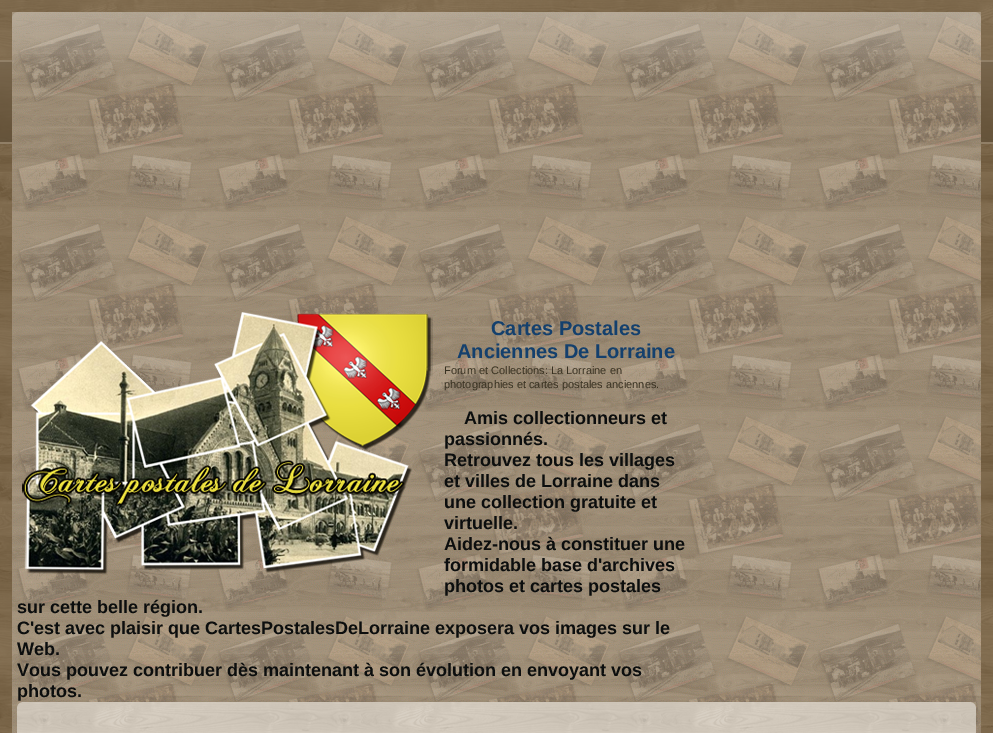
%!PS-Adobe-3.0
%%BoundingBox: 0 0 993 733
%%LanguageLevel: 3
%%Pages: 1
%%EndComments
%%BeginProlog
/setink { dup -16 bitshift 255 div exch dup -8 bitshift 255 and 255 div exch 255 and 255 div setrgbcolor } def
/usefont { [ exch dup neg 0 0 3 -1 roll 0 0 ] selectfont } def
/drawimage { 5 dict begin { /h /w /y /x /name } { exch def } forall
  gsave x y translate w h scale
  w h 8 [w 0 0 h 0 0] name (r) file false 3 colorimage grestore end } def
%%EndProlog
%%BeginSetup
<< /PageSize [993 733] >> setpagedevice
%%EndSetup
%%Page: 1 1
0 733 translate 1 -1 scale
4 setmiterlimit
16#FFFFFF setink
0 0 993 733 rectfill
(img1.raw) 0 0 993 733 drawimage
(img2.raw) 0 60 993 84 drawimage
(img3.raw) 12 12 969 721 drawimage
(img4.raw) 12 12 5 5 drawimage
(img5.raw) 976 12 5 5 drawimage
(img6.raw) 22 312 411 263 drawimage
/LiberationSans-Bold 20 usefont
16#14406D setink
491 335 moveto (Cartes Postales) show
457 358 moveto (Anciennes De Lorraine) show
/LiberationSans-Regular 11 usefont
16#383121 setink
444 374 moveto (Forum et Collections: La Lorraine en) show
444 388 moveto (photographies et cartes postales anciennes.) show
/LiberationSans-Bold 18 usefont
16#0C0E0E setink
[
    [(Amis collectionneurs et) 464 424]
    [(passionnés.) 444 445]
    [(Retrouvez tous les villages) 444 466]
    [(et villes de Lorraine dans) 444 487]
    [(une collection gratuite et) 444 508]
    [(virtuelle.) 444 529]
    [(Aidez-nous à constituer une) 444 550]
    [(formidable base d'archives) 444 571]
    [(photos et cartes postales) 444 592]
    [(sur cette belle région.) 17 613]
    [(C'est avec plaisir que CartesPostalesDeLorraine exposera vos images sur le) 17 634]
    [(Web.) 17 655]
    [(Vous pouvez contribuer dès maintenant à son évolution en envoyant vos) 17 676]
    [(photos.) 17 697]
] { aload pop moveto show } forall
(img7.raw) 17 702 959 31 drawimage
(img8.raw) 17 702 5 5 drawimage
(img9.raw) 971 702 5 5 drawimage
showpage
%%EOF
